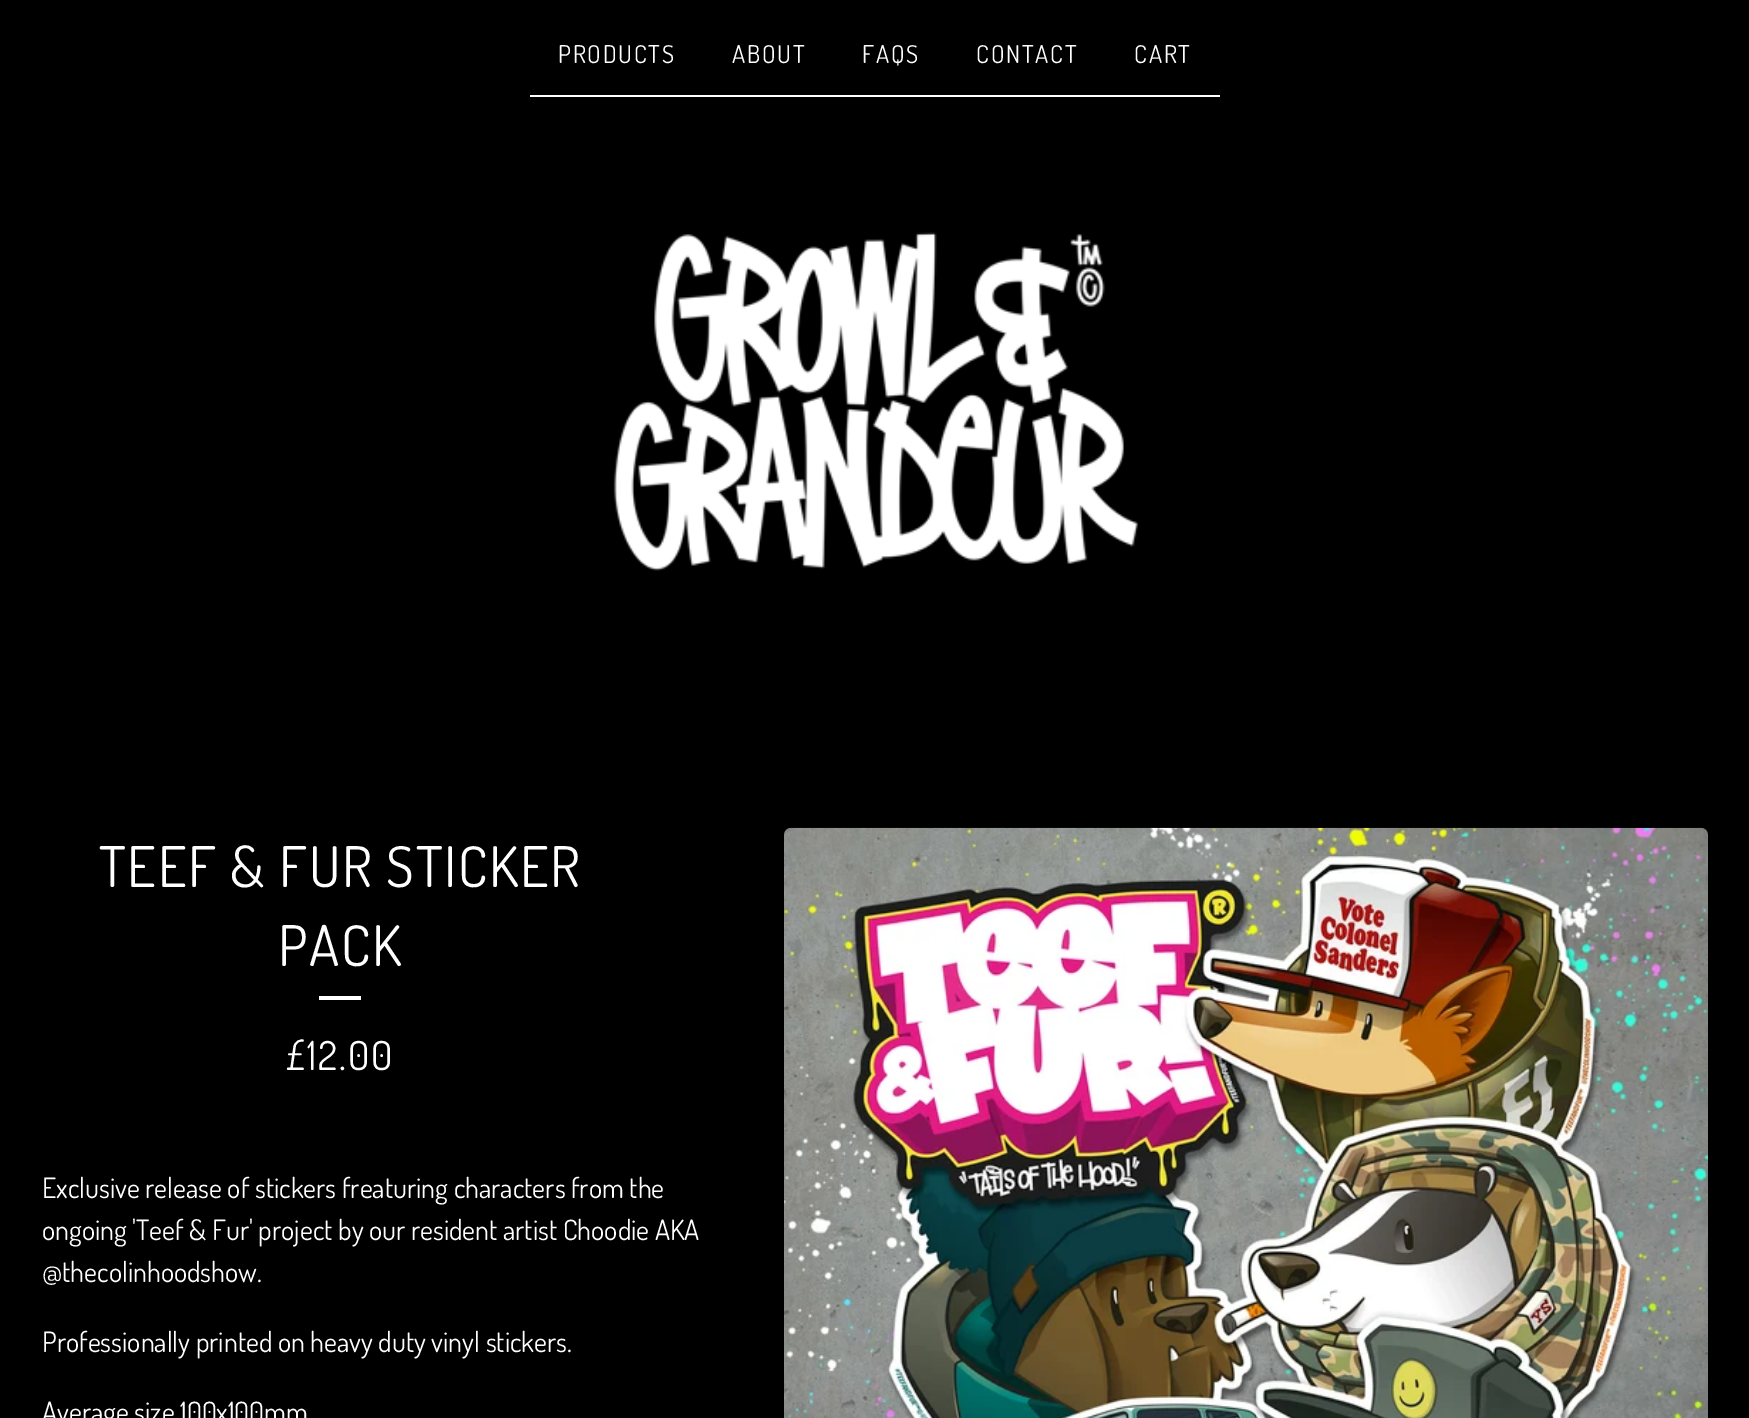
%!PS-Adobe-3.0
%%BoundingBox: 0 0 1749 1418
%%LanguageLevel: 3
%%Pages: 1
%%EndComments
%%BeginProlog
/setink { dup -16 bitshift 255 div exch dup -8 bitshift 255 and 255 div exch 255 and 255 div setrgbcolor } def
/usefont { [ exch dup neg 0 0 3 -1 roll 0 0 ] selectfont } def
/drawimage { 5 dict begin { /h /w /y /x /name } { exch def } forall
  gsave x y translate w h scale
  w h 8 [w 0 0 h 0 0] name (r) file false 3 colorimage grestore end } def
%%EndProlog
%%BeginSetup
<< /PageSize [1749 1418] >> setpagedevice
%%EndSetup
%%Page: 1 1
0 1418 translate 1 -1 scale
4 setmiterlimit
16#000000 setink
0 0 1749 1418 rectfill
16#FFFFFF setink
530 95 690 2 rectfill
/Dosis-Regular 24.5 usefont
558 63 moveto 1.75 0 (PRODUCTS) ashow
732 63 moveto 1.75 0 (ABOUT) ashow
862 63 moveto 1.75 0 (FAQS) ashow
976 63 moveto 1.75 0 (CONTACT) ashow
1134 63 moveto 1.75 0 (CART) ashow
(img1.raw) 613 232 525 339 drawimage
/Dosis-Regular 56 usefont
99 887 moveto 1.75 0 (TEEF & FUR STICKER) ashow
278 966 moveto 1.75 0 (PACK) ashow
319 996 42 4 rectfill
/Dosis-Regular 40 usefont
286 1070 moveto 1.75 0 (£12.00) ashow
(img2.raw) 784 827 924 591 drawimage
/Dosis-Regular 28 usefont
[
    [(Exclusive release of stickers freaturing characters from the) 42 1198]
    [(ongoing 'Teef & Fur' project by our resident artist Choodie AKA) 42 1240]
    [(@thecolinhoodshow.) 42 1282]
    [(Professionally printed on heavy duty vinyl stickers.) 42 1352]
    [(Average size 100x100mm) 42 1422]
] { aload pop moveto show } forall
showpage
%%EOF
